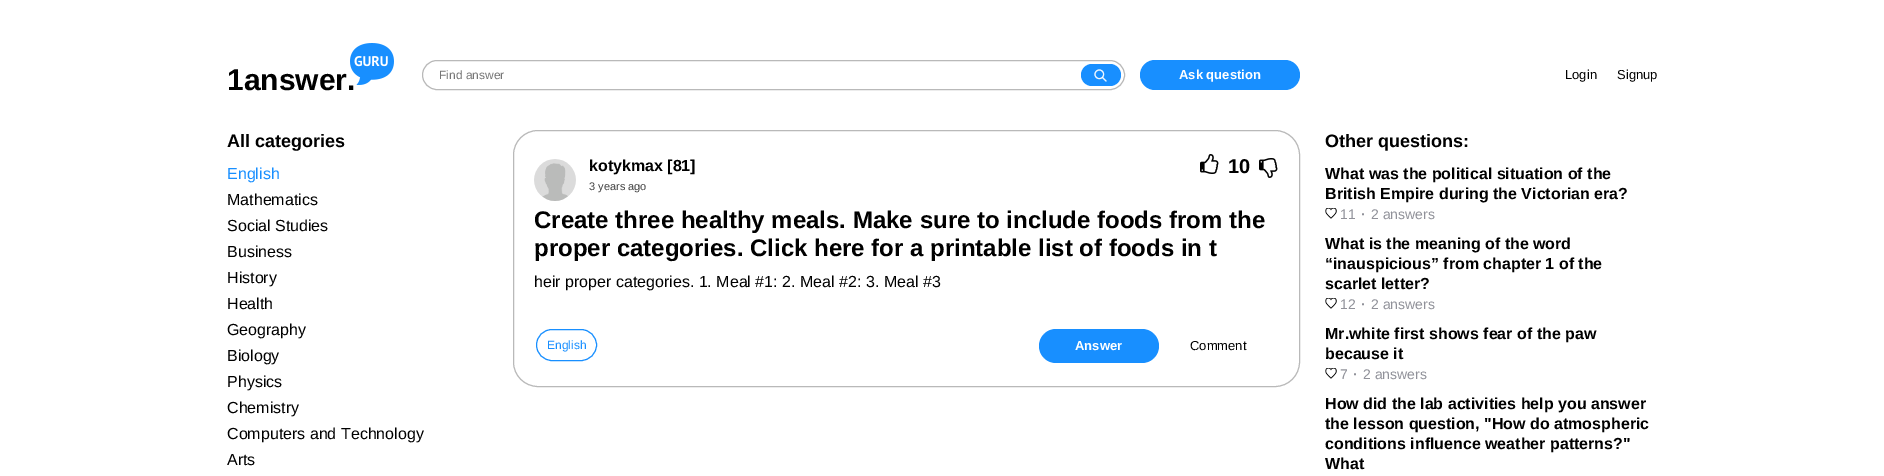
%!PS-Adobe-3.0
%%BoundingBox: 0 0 1884 476
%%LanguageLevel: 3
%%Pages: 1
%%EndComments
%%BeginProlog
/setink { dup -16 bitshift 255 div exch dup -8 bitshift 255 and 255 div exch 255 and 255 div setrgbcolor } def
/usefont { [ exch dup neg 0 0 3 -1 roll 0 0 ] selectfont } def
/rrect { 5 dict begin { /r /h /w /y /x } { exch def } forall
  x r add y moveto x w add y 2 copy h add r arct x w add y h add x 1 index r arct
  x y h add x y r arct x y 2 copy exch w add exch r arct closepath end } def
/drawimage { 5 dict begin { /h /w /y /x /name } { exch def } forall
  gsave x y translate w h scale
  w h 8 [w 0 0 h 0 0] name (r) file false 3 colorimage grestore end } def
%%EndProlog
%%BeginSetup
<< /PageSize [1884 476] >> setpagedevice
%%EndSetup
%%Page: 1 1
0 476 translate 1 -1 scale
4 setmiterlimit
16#FFFFFF setink
0 0 1884 476 rectfill
/LiberationSans-Bold 30 usefont
16#000000 setink
227 90 moveto (1answer.) show
(img1.raw) 350 43 44 42 drawimage
16#B9B9B9 setink
422.5 60.5 702 29 14.5 rrect stroke
/LiberationSans-Regular 12 usefont
16#757575 setink
439 79 moveto (Find answer) show
16#188FFF setink
1081 64 40 22 11 rrect fill
(img2.raw) 1094 69 13 13 drawimage
1140 60 160 30 15 rrect fill
/LiberationSans-Bold 13 usefont
16#FFFFFF setink
1179 79 moveto (Ask question) show
/LiberationSans-Regular 13 usefont
16#000000 setink
1565 79 moveto (Login) show
1617 79 moveto (Signup) show
/LiberationSans-Bold 18 usefont
227 147 moveto (All categories) show
/LiberationSans-Regular 16 usefont
16#188FFF setink
227 179 moveto (English) show
16#000000 setink
[
    [(Mathematics) 227 205]
    [(Social Studies) 227 231]
    [(Business) 227 257]
    [(History) 227 283]
    [(Health) 227 309]
    [(Geography) 227 335]
    [(Biology) 227 361]
    [(Physics) 227 387]
    [(Chemistry) 227 413]
    [(Computers and Technology) 227 439]
    [(Arts) 227 465]
] { aload pop moveto show } forall
16#B9B9B9 setink
513.5 130.5 786 256 24.5 rrect stroke
(img3.raw) 534 159 42 42 drawimage
/LiberationSans-Bold 16 usefont
16#000000 setink
589 171 moveto (kotykmax [81]) show
/LiberationSans-Regular 11 usefont
16#3F3F3F setink
589 190 moveto (3 years ago) show
(img4.raw) 1200 154 19 20 drawimage
/LiberationSans-Bold 20 usefont
16#000000 setink
1228 173 moveto (10) show
(img5.raw) 1259 158 19 20 drawimage
/LiberationSans-Bold 24 usefont
534 228 moveto (Create three healthy meals. Make sure to include foods from the) show
534 256 moveto (proper categories. Click here for a printable list of foods in t) show
/LiberationSans-Regular 16 usefont
534 287 moveto (heir proper categories. 1. Meal #1: 2. Meal #2: 3. Meal #3) show
16#188FFF setink
536.5 329.5 60 31 15.5 rrect stroke
/LiberationSans-Regular 12 usefont
547 349 moveto (English) show
1039 329 120 34 17 rrect fill
/LiberationSans-Bold 13 usefont
16#FFFFFF setink
1075 350 moveto (Answer) show
/LiberationSans-Regular 13 usefont
16#000000 setink
1190 350 moveto (Comment) show
/LiberationSans-Bold 18 usefont
1325 147 moveto (Other questions:) show
/LiberationSans-Bold 16 usefont
1325 179 moveto (What was the political situation of the) show
1325 199 moveto (British Empire during the Victorian era?) show
(img6.raw) 1325 208 12 11 drawimage
/LiberationSans-Regular 14 usefont
16#909199 setink
1340 219 moveto (11) show
/LiberationSans-Bold 14 usefont
1361 219 moveto (·) show
/LiberationSans-Regular 14 usefont
1371 219 moveto (2 answers) show
/LiberationSans-Bold 16 usefont
16#000000 setink
[
    [(What is the meaning of the word) 1325 249]
    [(“inauspicious” from chapter 1 of the) 1325 269]
    [(scarlet letter?) 1325 289]
] { aload pop moveto show } forall
(img6.raw) 1325 298 12 11 drawimage
/LiberationSans-Regular 14 usefont
16#909199 setink
1340 309 moveto (12) show
/LiberationSans-Bold 14 usefont
1361 309 moveto (·) show
/LiberationSans-Regular 14 usefont
1371 309 moveto (2 answers) show
/LiberationSans-Bold 16 usefont
16#000000 setink
1325 339 moveto (Mr.white first shows fear of the paw) show
1325 359 moveto (because it) show
(img6.raw) 1325 368 12 11 drawimage
/LiberationSans-Regular 14 usefont
16#909199 setink
1340 379 moveto (7) show
/LiberationSans-Bold 14 usefont
1353 379 moveto (·) show
/LiberationSans-Regular 14 usefont
1363 379 moveto (2 answers) show
/LiberationSans-Bold 16 usefont
16#000000 setink
[
    [(How did the lab activities help you answer) 1325 409]
    [(the lesson question, "How do atmospheric) 1325 429]
    [(conditions influence weather patterns?") 1325 449]
    [(What) 1325 469]
] { aload pop moveto show } forall
showpage
%%EOF
